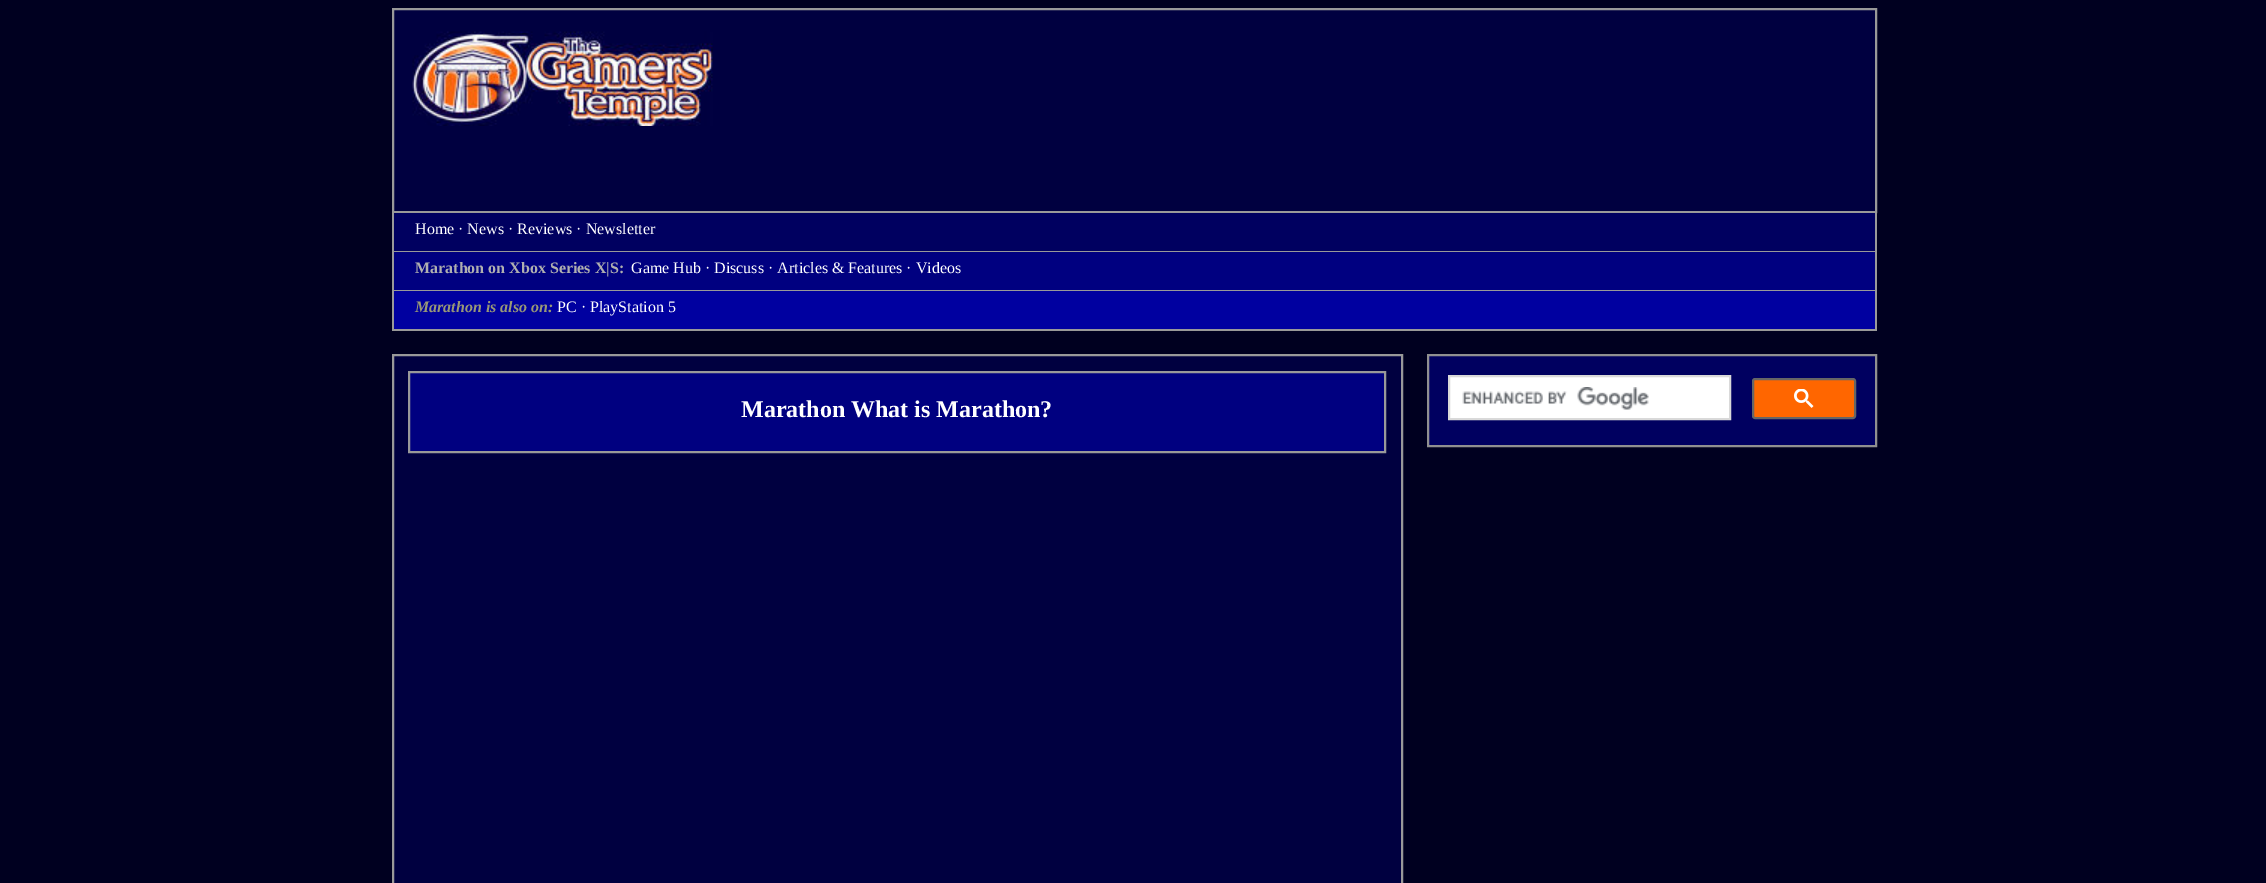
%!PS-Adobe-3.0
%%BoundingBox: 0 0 2266 883
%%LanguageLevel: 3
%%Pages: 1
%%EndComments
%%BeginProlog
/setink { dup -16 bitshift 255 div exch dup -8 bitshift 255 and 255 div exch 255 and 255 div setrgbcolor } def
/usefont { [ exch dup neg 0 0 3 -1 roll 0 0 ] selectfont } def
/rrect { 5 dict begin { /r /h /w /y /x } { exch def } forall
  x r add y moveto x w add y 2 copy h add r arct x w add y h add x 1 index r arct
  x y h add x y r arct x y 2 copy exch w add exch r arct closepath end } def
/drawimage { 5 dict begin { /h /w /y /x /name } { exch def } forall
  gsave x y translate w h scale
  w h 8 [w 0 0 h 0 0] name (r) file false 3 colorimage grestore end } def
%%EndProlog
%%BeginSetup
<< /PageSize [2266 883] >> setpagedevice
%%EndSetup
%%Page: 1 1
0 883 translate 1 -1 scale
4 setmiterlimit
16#000020 setink
0 0 2266 883 rectfill
[
    [1875 206 2 124 16#999999]
    [392 251 1485 1 16#999999]
    [392 206 2 46 16#999999]
] { aload pop setink rectfill } forall
16#000040 setink
393 9 moveto 1876 9 lineto 1876 212 lineto 393 212 lineto closepath gsave fill grestore
16#999999 setink
2 setlinewidth
stroke
(img1.raw) 412 31 301 95 drawimage
16#000060 setink
394 213 1481 38 rectfill
/LiberationSerif-Regular 16 usefont
16#FFFFFF setink
415 234 moveto (Home · News · Reviews · Newsletter) show
[
    [394 252 1481 38 16#000080]
    [392 290 1485 1 16#999999]
    [392 252 2 39 16#999999]
] { aload pop setink rectfill } forall
/LiberationSerif-Bold 16 usefont
16#B0B0B0 setink
415 273 moveto (Marathon on Xbox Series X|S:) show
/LiberationSerif-Regular 16 usefont
16#FFFFFF setink
631 273 moveto (Game Hub · Discuss · Articles & Features · Videos) show
[
    [394 291 1481 38 16#0000A0]
    [392 329 1485 2 16#999999]
    [392 291 2 39 16#999999]
] { aload pop setink rectfill } forall
/LiberationSerif-BoldItalic 16 usefont
16#999977 setink
415 312 moveto (Marathon is also on:) show
/LiberationSerif-Regular 16 usefont
16#FFFFFF setink
557 312 moveto (PC · PlayStation 5) show
16#000040 setink
393 355 moveto 1402 355 lineto 1402 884 lineto 393 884 lineto closepath gsave fill grestore
16#999999 setink
stroke
16#000080 setink
409 372 moveto 1385 372 lineto 1385 452 lineto 409 452 lineto closepath gsave fill grestore
16#999999 setink
stroke
/LiberationSerif-Bold 24 usefont
16#FFFFFF setink
741 417 moveto (Marathon What is Marathon?) show
16#000060 setink
1428 355 moveto 1876 355 lineto 1876 446 lineto 1428 446 lineto closepath gsave fill grestore
16#909090 setink
stroke
16#FFFFFF setink
1449 376 moveto 1730 376 lineto 1730 419 lineto 1449 419 lineto closepath gsave fill grestore
16#D9D9D9 setink
stroke
(img2.raw) 1462 387 187 23 drawimage
16#FF6600 setink
1753 379 102 39 2 rrect gsave fill grestore
16#666666 setink
stroke
(img3.raw) 1794 389 20 19 drawimage
showpage
%%EOF
